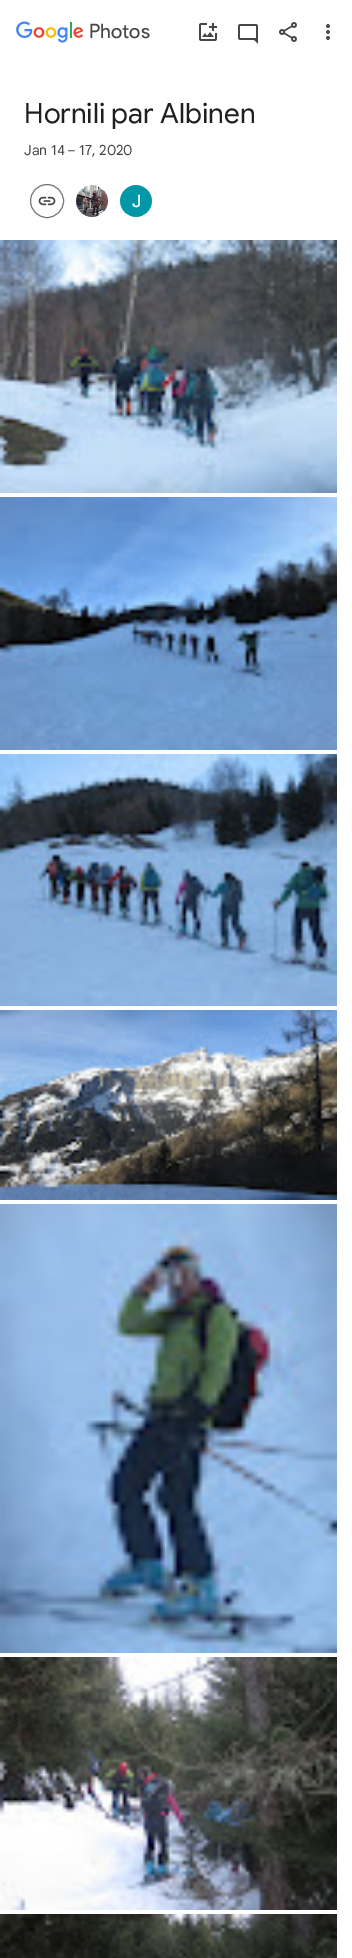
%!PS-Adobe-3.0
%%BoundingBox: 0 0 352 1958
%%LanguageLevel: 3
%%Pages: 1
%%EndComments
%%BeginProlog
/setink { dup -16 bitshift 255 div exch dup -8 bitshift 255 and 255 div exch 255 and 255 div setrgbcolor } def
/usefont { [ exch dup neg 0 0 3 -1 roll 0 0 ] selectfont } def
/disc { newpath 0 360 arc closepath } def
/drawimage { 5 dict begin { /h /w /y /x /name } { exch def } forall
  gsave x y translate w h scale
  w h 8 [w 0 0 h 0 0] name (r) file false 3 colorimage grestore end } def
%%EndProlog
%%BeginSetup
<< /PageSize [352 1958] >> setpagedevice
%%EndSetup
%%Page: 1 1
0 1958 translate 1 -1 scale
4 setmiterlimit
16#FFFFFF setink
0 0 352 1958 rectfill
(img1.raw) 16 21 68 22 drawimage
/ProductSans-Regular 20 usefont
16#444746 setink
89 38 moveto (Photos) show
(img2.raw) 199 23 18 18 drawimage
(img3.raw) 238 24 20 20 drawimage
(img4.raw) 279 22 18 20 drawimage
(img5.raw) 326 24 4 16 drawimage
/GoogleSans-Regular 28 usefont
16#1F1F1F setink
24 123 moveto (Hornili par Albinen) show
/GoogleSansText-Regular 14 usefont
16#444746 setink
24 155 moveto (Jan 14 – 17, 2020) show
16#747775 setink
47 201 16.5 disc stroke
(img6.raw) 38 196 18 10 drawimage
(img7.raw) 76 185 32 32 drawimage
(img8.raw) 120 185 32 32 drawimage
(img9.raw) 0 240 337 253 drawimage
(img10.raw) 0 497 337 253 drawimage
(img11.raw) 0 754 337 252 drawimage
(img12.raw) 0 1010 337 190 drawimage
(img13.raw) 0 1204 337 449 drawimage
(img14.raw) 0 1657 337 253 drawimage
(img15.raw) 0 1914 337 44 drawimage
showpage
%%EOF
